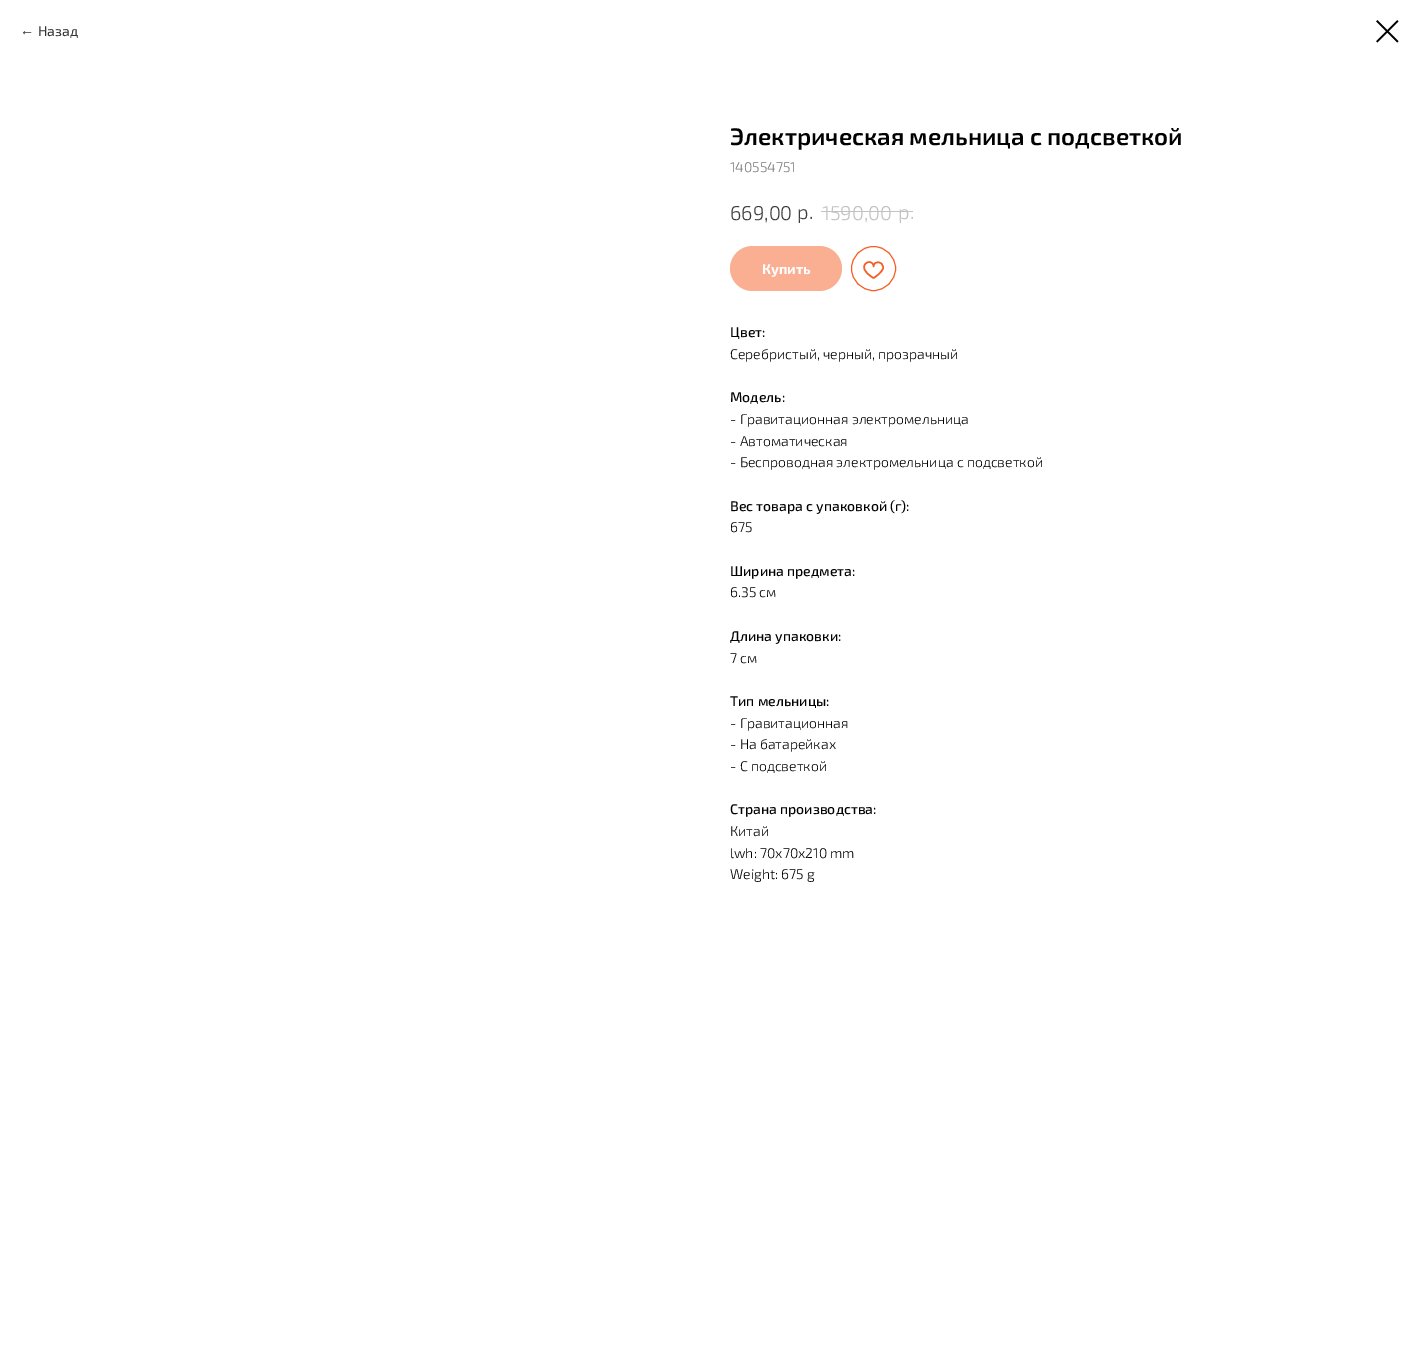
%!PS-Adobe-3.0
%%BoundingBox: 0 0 1419 1359
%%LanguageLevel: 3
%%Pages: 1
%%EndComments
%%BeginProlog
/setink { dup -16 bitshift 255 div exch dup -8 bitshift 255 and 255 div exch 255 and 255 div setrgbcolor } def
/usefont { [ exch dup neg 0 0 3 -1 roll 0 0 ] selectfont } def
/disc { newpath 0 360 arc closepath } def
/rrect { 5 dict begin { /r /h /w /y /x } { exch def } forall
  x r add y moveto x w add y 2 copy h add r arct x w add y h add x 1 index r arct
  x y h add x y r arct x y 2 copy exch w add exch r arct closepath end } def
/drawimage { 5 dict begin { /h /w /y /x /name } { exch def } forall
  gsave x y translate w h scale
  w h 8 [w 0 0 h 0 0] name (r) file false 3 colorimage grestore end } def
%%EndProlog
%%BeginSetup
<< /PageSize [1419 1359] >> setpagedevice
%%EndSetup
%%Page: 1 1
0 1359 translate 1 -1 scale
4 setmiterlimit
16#FFFFFF setink
0 0 1419 1359 rectfill
/LiberationSans-Regular 14 usefont
16#333333 setink
20 35 moveto (←) show
/Exo2-Regular 14 usefont
38 36 moveto (Назад) show
(img1.raw) 1376 20 23 23 drawimage
/Exo2-SemiBold 24 usefont
16#000000 setink
730 145 moveto (Электрическая мельница с подсветкой) show
/Exo2-Light 14 usefont
16#777777 setink
730 172 moveto (140554751) show
/Exo2-Light 20 usefont
16#3D3D3D setink
730 220 moveto (669,00) show
797 219 moveto (р.) show
16#C2C2C2 setink
822 220 moveto (1590,00) show
898 219 moveto (р.) show
821 211 92 1 rectfill
16#FAAF93 setink
730 246 112 45 22.5 rrect fill
/Exo2-Bold 14 usefont
16#FFFFFF setink
762 274 moveto (Купить) show
16#F55F26 setink
873.5 268.5 22 disc stroke
1.5 setlinewidth
1 setlinejoin
883 267.5 moveto 883 272.5 873.5 278 873.5 278 curveto 852 265.5 873.5 256 873.5 266.5 curveto 873.5 260.5 883 260.5 883 267.5 curveto closepath stroke
/Exo2-Medium 14 usefont
16#000000 setink
730 337 moveto (Цвет:) show
/Exo2-Light 14 usefont
730 359 moveto (Серебристый, черный, прозрачный) show
/Exo2-Medium 14 usefont
730 402 moveto (Модель:) show
/Exo2-Light 14 usefont
[
    [(- Гравитационная электромельница) 730 424]
    [(- Автоматическая) 730 446]
    [(- Беспроводная электромельница с подсветкой) 730 467]
] { aload pop moveto show } forall
/Exo2-Medium 14 usefont
730 511 moveto (Вес товара с упаковкой \(г\):) show
/Exo2-Light 14 usefont
730 532 moveto (675) show
/Exo2-Medium 14 usefont
730 576 moveto (Ширина предмета:) show
/Exo2-Light 14 usefont
730 597 moveto (6.35 см) show
/Exo2-Medium 14 usefont
730 641 moveto (Длина упаковки:) show
/Exo2-Light 14 usefont
730 663 moveto (7 см) show
/Exo2-Medium 14 usefont
730 706 moveto (Тип мельницы:) show
/Exo2-Light 14 usefont
[
    [(- Гравитационная) 730 728]
    [(- На батарейках) 730 749]
    [(- С подсветкой) 730 771]
] { aload pop moveto show } forall
/Exo2-Medium 14 usefont
730 814 moveto (Страна производства:) show
/Exo2-Light 14 usefont
[
    [(Китай) 730 836]
    [(lwh: 70x70x210 mm) 730 858]
    [(Weight: 675 g) 730 879]
] { aload pop moveto show } forall
showpage
%%EOF
